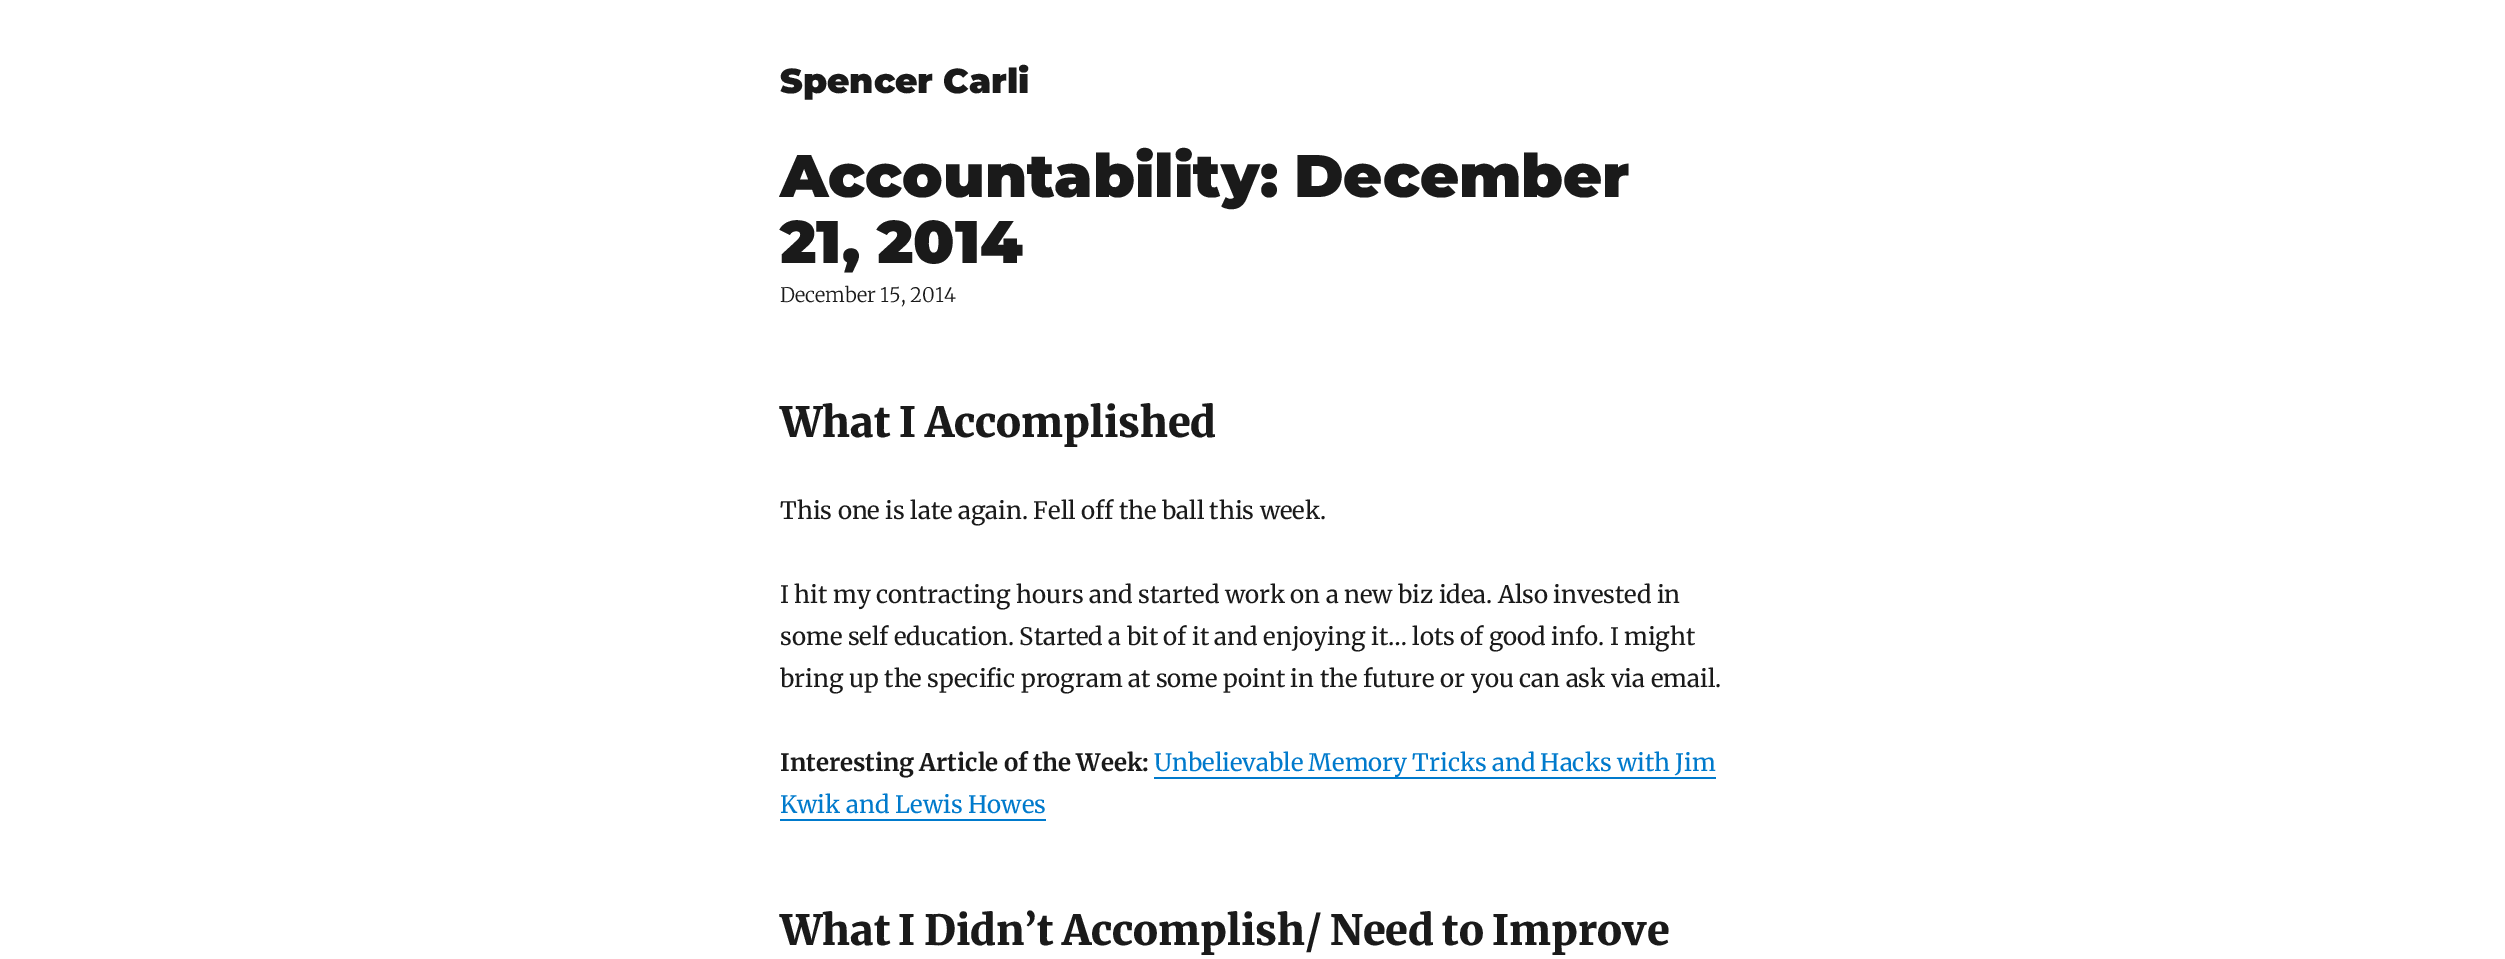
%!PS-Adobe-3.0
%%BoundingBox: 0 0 2505 959
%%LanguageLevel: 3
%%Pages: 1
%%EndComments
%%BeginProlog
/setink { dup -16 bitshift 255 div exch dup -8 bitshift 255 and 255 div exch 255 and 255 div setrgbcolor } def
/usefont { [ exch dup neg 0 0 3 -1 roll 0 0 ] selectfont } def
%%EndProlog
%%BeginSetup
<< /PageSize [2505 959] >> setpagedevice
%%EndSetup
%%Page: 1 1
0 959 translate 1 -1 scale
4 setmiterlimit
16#FFFFFF setink
0 0 2505 959 rectfill
/Montserrat-Black 34.5 usefont
16#1A1A1A setink
780 93 moveto (Spencer Carli) show
/Montserrat-Black 60 usefont
780 197 moveto -2 0 32 (Accountability: December) widthshow
780 263 moveto -1 0 32 (21, 2014) widthshow
/Merriweather-Light 20 usefont
780 302 moveto -0.3 0 32 (December 15, 2014) widthshow
/Merriweather-Black 41.6 usefont
780 437 moveto -1 0 32 (What I Accomplished) widthshow
/Merriweather-Regular 24 usefont
780 519 moveto -0.25 0 32 (This one is late again. Fell off the ball this week.) widthshow
780 603 moveto -0.25 0 32 (I hit my contracting hours and started work on a new biz idea. Also invested in) widthshow
780 645 moveto -0.3 0 32 (some self education. Started a bit of it and enjoying it… lots of good info. I might) widthshow
780 687 moveto -0.2 0 32 (bring up the specific program at some point in the future or you can ask via email.) widthshow
/Merriweather-Bold 24 usefont
780 771 moveto -0.5 0 32 (Interesting Article of the Week:) widthshow
/Merriweather-Regular 24 usefont
16#007ACC setink
1154 771 moveto -0.5 0 32 (Unbelievable Memory Tricks and Hacks with Jim) widthshow
1154 777 562 2 rectfill
780 813 moveto (Kwik and Lewis Howes) show
780 819 moveto 780 821 lineto 1046 821 lineto 1046 791 lineto 1046 819 lineto closepath fill
/Merriweather-Black 41.6 usefont
16#1A1A1A setink
780 945 moveto -1.5 0 32 (What I Didn’t Accomplish/ Need to Improve) widthshow
showpage
%%EOF
